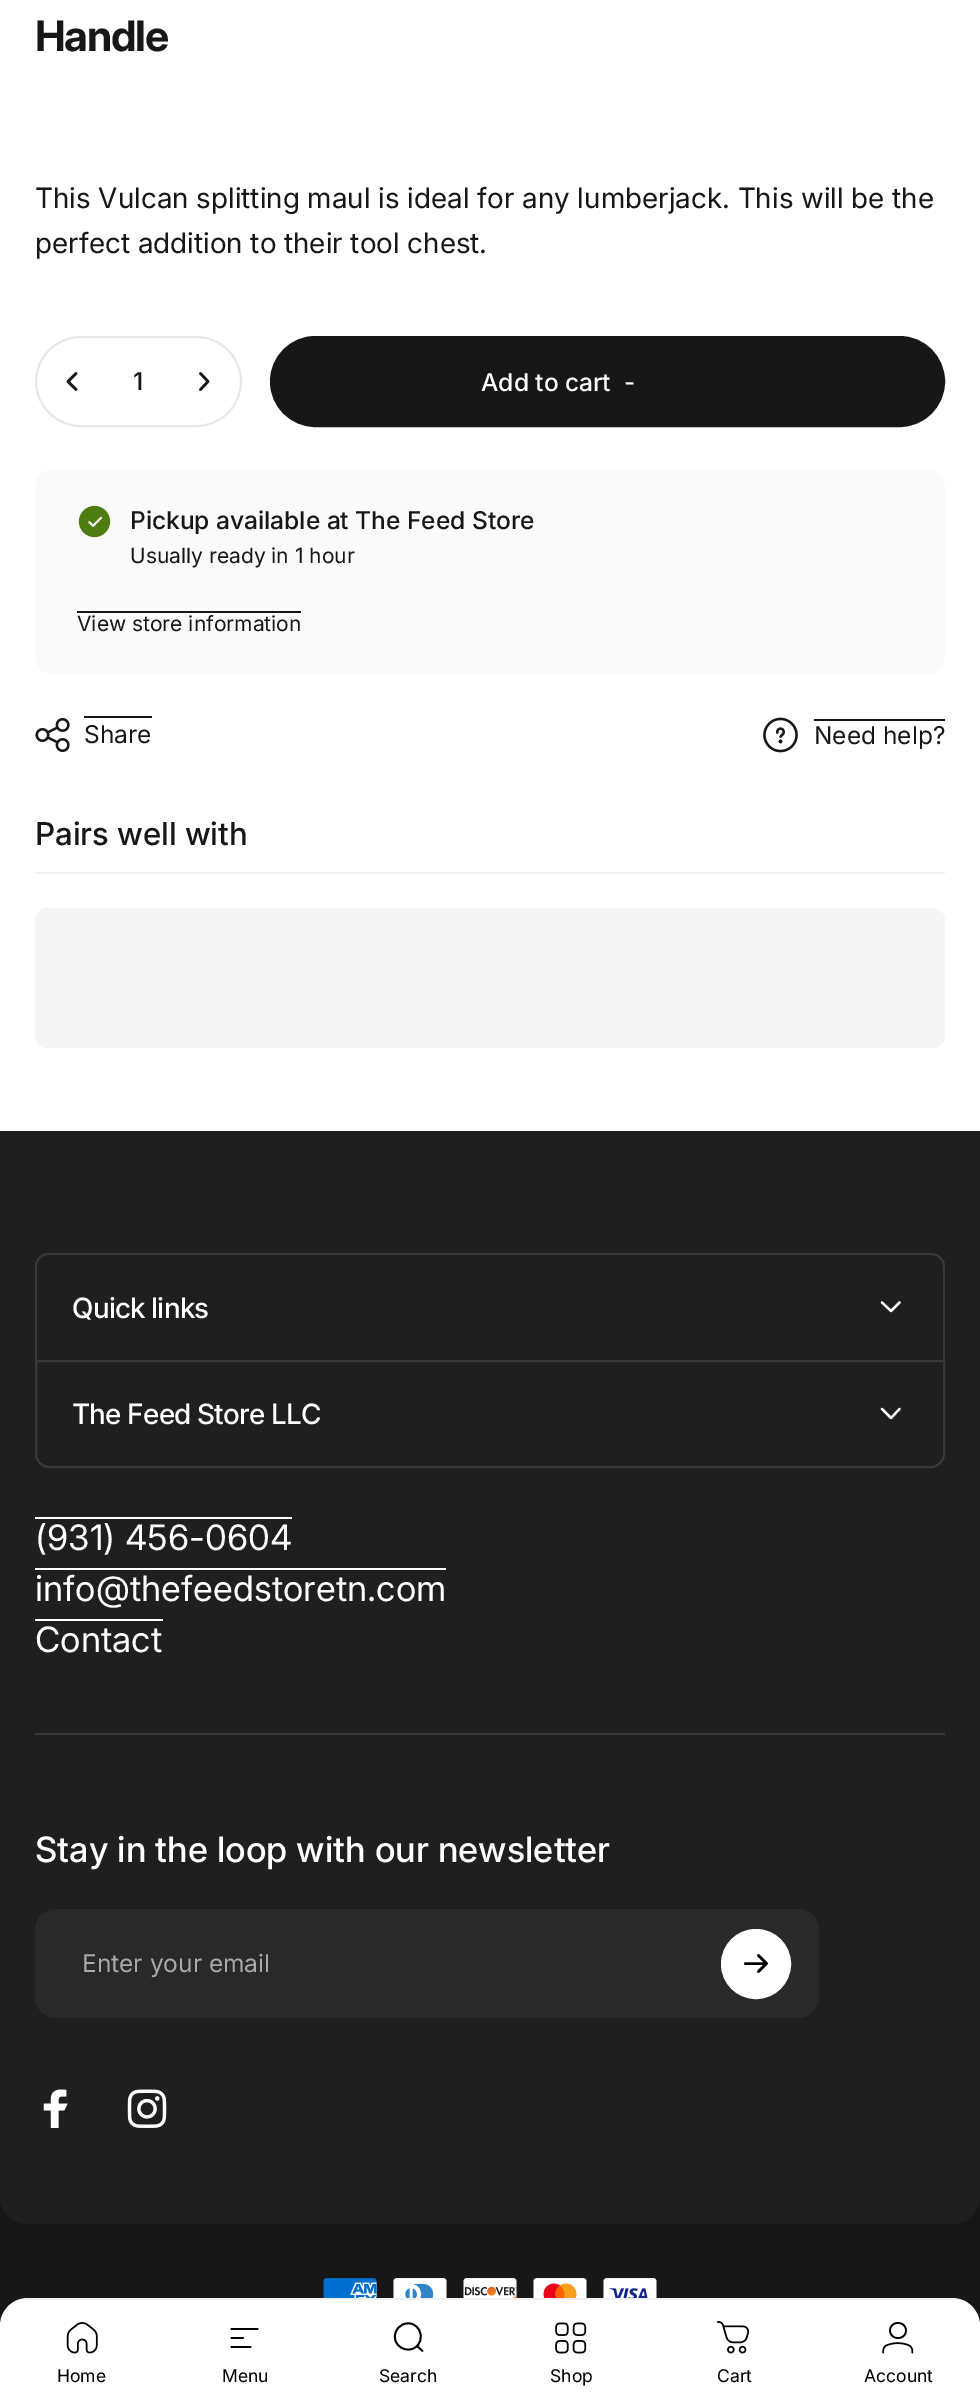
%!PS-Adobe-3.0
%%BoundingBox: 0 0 980 2403
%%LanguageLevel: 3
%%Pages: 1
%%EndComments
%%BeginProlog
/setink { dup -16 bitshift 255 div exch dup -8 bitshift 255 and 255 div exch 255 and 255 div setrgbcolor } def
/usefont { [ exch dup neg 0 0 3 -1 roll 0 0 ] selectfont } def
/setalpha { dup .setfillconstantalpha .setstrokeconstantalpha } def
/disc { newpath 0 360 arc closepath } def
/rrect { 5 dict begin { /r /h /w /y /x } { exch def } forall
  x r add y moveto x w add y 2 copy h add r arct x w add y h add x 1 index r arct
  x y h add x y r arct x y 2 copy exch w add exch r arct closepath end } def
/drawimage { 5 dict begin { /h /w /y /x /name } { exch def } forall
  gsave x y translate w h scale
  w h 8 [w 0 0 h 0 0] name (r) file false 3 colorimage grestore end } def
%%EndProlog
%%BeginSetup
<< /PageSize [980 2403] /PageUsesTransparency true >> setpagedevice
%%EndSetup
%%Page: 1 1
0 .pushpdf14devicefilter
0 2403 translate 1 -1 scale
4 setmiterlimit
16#FFFFFF setink
0 0 980 2403 rectfill
/Inter-Bold 42 usefont
16#171717 setink
35 51 moveto -1.25 0 (Handle) ashow
/Inter-Regular 28 usefont
35 208 moveto (This Vulcan splitting maul is ideal for any lumberjack. This will be the) show
35 253 moveto (perfect addition to their tool chest.) show
16#E8E8E8 setink
2 setlinewidth
36 337 205 89 44.5 rrect stroke
16#171717 setink
2.6 setlinewidth
1 setlinecap
1 setlinejoin
76 373.5 moveto 68 381.5 lineto 76 389.5 lineto stroke
/Inter-Medium 24.5 usefont
133 390 moveto (1) show
200.5 373.5 moveto 208 381.5 lineto 200.5 389.5 lineto stroke
272 338 671 87 43.5 rrect gsave fill grestore
4 setlinewidth
0 setlinecap
0 setlinejoin
stroke
16#FFFFFF setink
481 391 moveto (Add to cart) show
624 391 moveto (-) show
16#FAFAFA setink
35 469 910 205 18 rrect fill
(img1.raw) 78 505 33 33 drawimage
16#171717 setink
130 529 moveto (Pickup available at The Feed Store) show
/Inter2-Regular 21 usefont
130 563 moveto (Usually ready in 1 hour) show
77 631 moveto (View store information) show
77 611 224 2 rectfill
(img2.raw) 35 718 35 34 drawimage
84 716 68 2 rectfill
/Inter2-Regular 24.5 usefont
84 743 moveto (Share) show
(img3.raw) 763 717 35 36 drawimage
814 719 131 2 rectfill
814 744 moveto (Need help?) show
16#F1F1F1 setink
35 872 910 2 rectfill
/Inter2-Medium 31.5 usefont
16#171717 setink
35 845 moveto (Pairs well with) show
gsave 35 908 910 140 14 rrect clip newpath
<< /ShadingType 2 /ColorSpace /DeviceRGB /Coords [78 665 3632 1292] /Extend [true true] /Function << /FunctionType 3 /Domain [0 1] /Functions [<< /FunctionType 2 /Domain [0 1] /C0 [0.961 0.961 0.961] /C1 [0.961 0.961 0.961] /N 1 >> << /FunctionType 2 /Domain [0 1] /C0 [0.961 0.961 0.961] /C1 [0.898 0.898 0.898] /N 1 >> << /FunctionType 2 /Domain [0 1] /C0 [0.898 0.898 0.898] /C1 [0.961 0.961 0.961] /N 1 >> << /FunctionType 2 /Domain [0 1] /C0 [0.961 0.961 0.961] /C1 [0.961 0.961 0.961] /N 1 >>] /Bounds [0.4 0.63 0.79] /Encode [0 1 0 1 0 1 0 1] >> >> shfill grestore
0 2196 980 130 rectfill
16#1F1F1F setink
0 1131 moveto 980 1131 lineto 980 2196 lineto 980 2211.5 967.5 2224 952 2224 curveto 28 2224 lineto 12.5 2224 0 2211.5 0 2196 curveto closepath fill
16#393939 setink
49 1253 moveto 931 1253 lineto 939 1253 945 1259 945 1267 curveto 945 1360 lineto 35 1360 lineto 35 1267 lineto 35 1259 41 1253 49 1253 curveto closepath 49 1255 moveto 931 1255 lineto 938 1255 943 1260 943 1267 curveto 943 1360 lineto 37 1360 lineto 37 1267 lineto 37 1260 42 1255 49 1255 curveto closepath eofill
/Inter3-Medium 28 usefont
16#FFFFFF setink
72 1318 moveto -0.8 0 (Quick links) ashow
2.2 setlinewidth
1 setlinecap
1 setlinejoin
882 1302.5 moveto 891 1311 lineto 899.5 1302.5 lineto stroke
16#393939 setink
2 setlinewidth
0 setlinecap
0 setlinejoin
36 1361 moveto 944 1361 lineto 944 1454 lineto 944 1461 938 1467 931 1467 curveto 49 1467 lineto 42 1467 36 1461 36 1454 curveto closepath stroke
16#FFFFFF setink
72 1424 moveto -0.8 0 (The Feed Store LLC) ashow
2.2 setlinewidth
1 setlinecap
1 setlinejoin
882 1409 moveto 891 1418 lineto 899.5 1409 lineto stroke
35 1517 257 2 rectfill
/Inter3-Regular 35 usefont
35 1550 moveto (\(931\) 456-0604) show
35 1568 411 2 rectfill
35 1601 moveto (info@thefeedstoretn.com) show
35 1619 128 2 rectfill
35 1652 moveto (Contact) show
16#393939 setink
35 1733 910 2 rectfill
/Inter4-Medium 35 usefont
16#FFFFFF setink
35 1862 moveto (Stay in the loop with our newsletter) show
16#292929 setink
35 1909 784 109 21 rrect fill
/Inter2-Regular 24.5 usefont
16#A9A9A9 setink
82 1972 moveto (Enter your email) show
16#FFFFFF setink
756 1964 33 disc gsave fill grestore
4 setlinewidth
0 setlinecap
0 setlinejoin
stroke
16#000000 setink
2.6 setlinewidth
1 setlinecap
1 setlinejoin
745.5 1963.5 moveto 766.5 1963.5 lineto 766.5 1963.5 moveto 758.5 1955.5 lineto 766.5 1963.5 moveto 758.5 1971.5 lineto stroke
(img4.raw) 43 2089 25 39 drawimage
(img5.raw) 127 2089 40 39 drawimage
(img6.raw) 323 2278 54 20 drawimage
(img7.raw) 393 2278 54 20 drawimage
(img8.raw) 463 2278 54 20 drawimage
(img9.raw) 533 2278 54 20 drawimage
(img10.raw) 603 2278 54 20 drawimage
16#FFFFFF setink
28 2298 moveto 952 2298 lineto 967.5 2298 980 2310.5 980 2326 curveto 980 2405 lineto 0 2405 lineto 0 2326 lineto 0 2310.5 12.5 2298 28 2298 curveto closepath fill
0.06 setalpha
16#000000 setink
14 2298 952 2 rectfill
1 setalpha
(img11.raw) 66 2322 32 32 drawimage
/Inter2-Regular 17.5 usefont
57 2382 moveto (Home) show
1.8 setlinewidth
231.5 2329 moveto 257.5 2329 lineto 231.5 2338 moveto 243 2338 lineto 231.5 2347 moveto 250.5 2347 lineto stroke
222 2382 moveto (Menu) show
422.5 2351 moveto 417 2346 lineto 417 2346 moveto 423 2340 422 2330 415 2325.5 curveto 411.5 2323 407 2322.5 403 2324.5 curveto 399.5 2326 397 2328.5 396 2331.5 curveto 390 2345 407.5 2355.5 417 2346 curveto closepath stroke
379 2382 moveto (Search) show
(img12.raw) 555 2322 32 32 drawimage
550 2382 moveto (Shop) show
(img13.raw) 716 2321 34 33 drawimage
717 2382 moveto (Cart) show
(img14.raw) 882 2322 32 32 drawimage
864 2382 moveto (Account) show
.poppdf14devicefilter showpage
%%EOF
